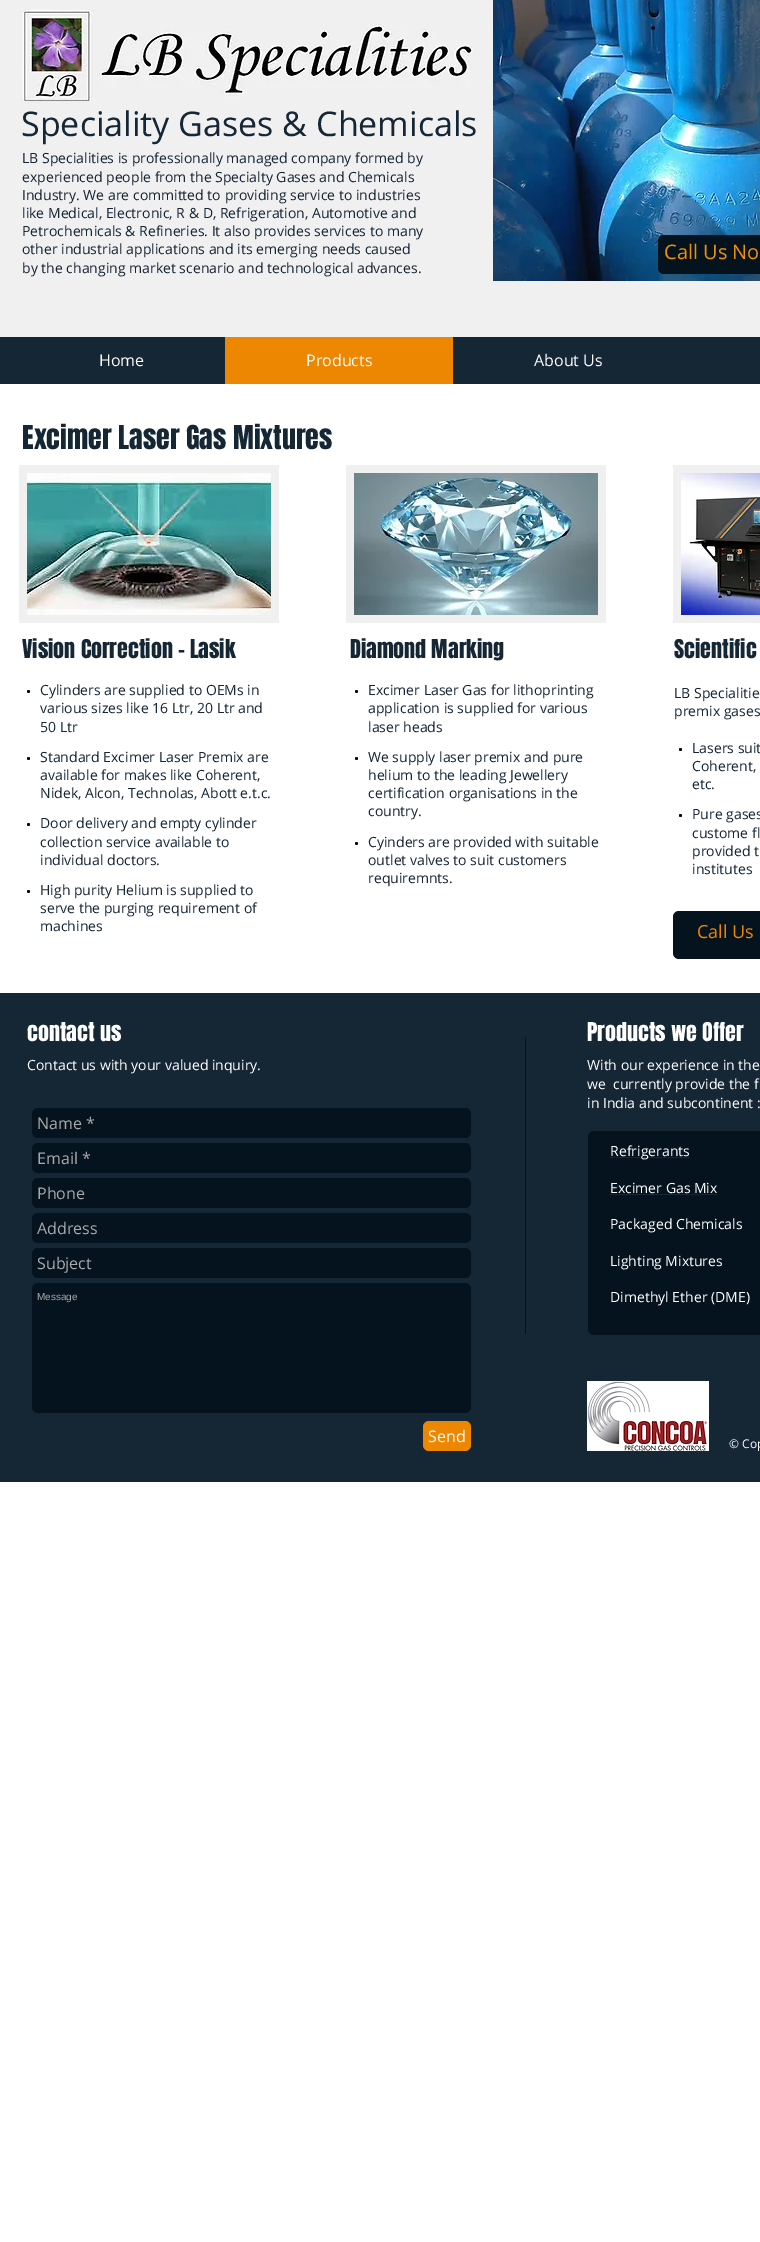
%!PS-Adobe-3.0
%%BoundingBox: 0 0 760 2242
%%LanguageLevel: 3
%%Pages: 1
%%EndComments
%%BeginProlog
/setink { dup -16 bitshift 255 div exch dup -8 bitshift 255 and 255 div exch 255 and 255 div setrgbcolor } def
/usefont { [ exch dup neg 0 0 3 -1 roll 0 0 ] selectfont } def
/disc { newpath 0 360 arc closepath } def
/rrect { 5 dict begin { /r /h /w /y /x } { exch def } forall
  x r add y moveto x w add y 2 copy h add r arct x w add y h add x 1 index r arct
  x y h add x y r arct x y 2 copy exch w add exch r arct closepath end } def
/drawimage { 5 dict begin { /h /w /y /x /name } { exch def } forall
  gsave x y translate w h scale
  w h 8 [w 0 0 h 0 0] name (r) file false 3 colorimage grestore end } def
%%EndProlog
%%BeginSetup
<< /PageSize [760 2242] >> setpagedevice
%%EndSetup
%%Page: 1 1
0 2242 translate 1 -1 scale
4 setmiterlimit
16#FFFFFF setink
0 0 760 2242 rectfill
16#F0F0F0 setink
0 0 760 337 rectfill
(img1.raw) 21 9 452 93 drawimage
(img2.raw) 493 0 267 281 drawimage
/OpenSans-Regular 34 usefont
16#152635 setink
21 136 moveto (Speciality Gases & Chemicals) show
/OpenSans-Regular 14 usefont
[
    [(LB Specialities is professionally managed company formed by) 22 163]
    [(experienced people from the Specialty Gases and Chemicals) 22 182]
    [(Industry. We are committed to providing service to industries) 22 200]
    [(like Medical, Electronic, R & D, Refrigeration, Automotive and) 22 218]
    [(Petrochemicals & Refineries. It also provides services to many) 22 236]
    [(other industrial applications and its emerging needs caused) 22 254]
    [(by the changing market scenario and technological advances.) 22 273]
] { aload pop moveto show } forall
16#05131E setink
658 235 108 39 6 rrect fill
/OpenSans-Regular 20 usefont
16#F39200 setink
664 259 moveto (Call Us No) show
16#152635 setink
0 337 760 47 rectfill
/OpenSans-Regular 16 usefont
16#FFFFFF setink
99 366 moveto (Home) show
16#ED8600 setink
225 337 228 47 rectfill
16#FFFFFF setink
306 366 moveto (Products) show
534 366 moveto (About Us) show
/Anton-Regular 28 usefont
16#152635 setink
22 449 moveto (Excimer Laser Gas Mixtures) show
16#F0F0F0 setink
19 465 260 158 rectfill
(img3.raw) 27 473 244 142 drawimage
346 465 260 158 rectfill
(img4.raw) 354 473 244 142 drawimage
673 465 87 158 rectfill
(img5.raw) 681 473 79 142 drawimage
/Anton-Regular 22 usefont
16#152635 setink
22 658 moveto (Vision Correction - Lasik) show
16#080808 setink
28.5 691.5 1.5 disc fill
/OpenSans-Regular 14 usefont
16#152635 setink
[
    [(Cylinders are supplied to OEMs in) 40 695]
    [(various sizes like 16 Ltr, 20 Ltr and) 40 713]
    [(50 Ltr) 40 732]
] { aload pop moveto show } forall
16#080808 setink
28.5 758.5 1.5 disc fill
16#152635 setink
[
    [(Standard Excimer Laser Premix are) 40 762]
    [(available for makes like Coherent,) 40 780]
    [(Nidek, Alcon, Technolas, Abott e.t.c.) 40 798]
] { aload pop moveto show } forall
16#080808 setink
28.5 824.5 1.5 disc fill
16#152635 setink
[
    [(Door delivery and empty cylinder) 40 828]
    [(collection service available to) 40 847]
    [(individual doctors.) 40 865]
] { aload pop moveto show } forall
16#080808 setink
28.5 891.5 1.5 disc fill
16#152635 setink
[
    [(High purity Helium is supplied to) 40 895]
    [(serve the purging requirement of) 40 913]
    [(machines) 40 931]
] { aload pop moveto show } forall
/Anton-Regular 22 usefont
350 658 moveto (Diamond Marking) show
16#080808 setink
356.5 691.5 1.5 disc fill
/OpenSans-Regular 14 usefont
16#152635 setink
[
    [(Excimer Laser Gas for lithoprinting) 368 695]
    [(application is supplied for various) 368 713]
    [(laser heads) 368 732]
] { aload pop moveto show } forall
16#080808 setink
356.5 758.5 1.5 disc fill
16#152635 setink
[
    [(We supply laser premix and pure) 368 762]
    [(helium to the leading Jewellery) 368 780]
    [(certification organisations in the) 368 798]
    [(country.) 368 816]
] { aload pop moveto show } forall
16#080808 setink
356.5 843.5 1.5 disc fill
16#152635 setink
[
    [(Cyinders are provided with suitable) 368 847]
    [(outlet valves to suit customers) 368 865]
    [(requiremnts.) 368 883]
] { aload pop moveto show } forall
/Anton-Regular 22 usefont
674 658 moveto (Scientific) show
/OpenSans-Regular 14 usefont
674 698 moveto (LB Specialitie) show
674 716 moveto (premix gases) show
16#080808 setink
680.5 749.5 1.5 disc fill
16#152635 setink
[
    [(Lasers suit) 692 753]
    [(Coherent,) 692 771]
    [(etc.) 692 789]
] { aload pop moveto show } forall
16#080808 setink
680.5 815.5 1.5 disc fill
16#152635 setink
[
    [(Pure gases) 692 819]
    [(custome fl) 692 838]
    [(provided t) 692 856]
    [(institutes) 692 874]
] { aload pop moveto show } forall
16#05131E setink
673 911 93 48 6 rrect fill
/OpenSans-Regular 18 usefont
16#ED8600 setink
697 938 moveto (Call Us) show
16#152635 setink
0 993 760 489 rectfill
/Anton-Regular 22 usefont
16#FFFFFF setink
27 1041 moveto (contact us) show
587 1041 moveto (Products we Offer) show
/OpenSans-Regular 14 usefont
27 1070 moveto (Contact us with your valued inquiry.) show
16#06141F setink
525 1037 1 297 rectfill
16#FFFFFF setink
[
    [(With our experience in the) 587 1070]
    [(we  currently provide the f) 587 1089]
    [(in India and subcontinent :) 587 1108]
] { aload pop moveto show } forall
16#05131E setink
32 1108 439 30 6 rrect fill
/OpenSans-Regular 16 usefont
16#A9A9A9 setink
37 1129 moveto (Name *) show
16#05131E setink
32 1143 439 30 6 rrect fill
16#A9A9A9 setink
37 1164 moveto (Email *) show
16#05131E setink
32 1178 439 30 6 rrect fill
16#A9A9A9 setink
37 1199 moveto (Phone) show
16#05131E setink
32 1213 439 30 6 rrect fill
16#A9A9A9 setink
37 1234 moveto (Address) show
16#05131E setink
32 1248 439 30 6 rrect fill
16#A9A9A9 setink
37 1269 moveto (Subject) show
16#05131E setink
32 1283 439 130 6 rrect fill
/LiberationSans-Regular 10 usefont
16#A9A9A9 setink
37 1300 moveto (Message) show
16#ED8600 setink
423 1421 48 30 6 rrect fill
/OpenSans-Regular 16 usefont
16#FFFFFF setink
428 1442 moveto (Send) show
16#05131E setink
588 1131 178 204 6 rrect fill
16#152635 setink
610 1157 80 1 rectfill
/OpenSans-Regular 14 usefont
16#FFFFFF setink
610 1156 moveto (Refrigerants) show
610 1193 moveto (Excimer Gas Mix) show
16#152635 setink
610 1194 107 1 rectfill
16#FFFFFF setink
[
    [(Packaged Chemicals) 610 1229]
    [(Lighting Mixtures) 610 1266]
    [(Dimethyl Ether \(DME\)) 610 1302]
] { aload pop moveto show } forall
(img6.raw) 587 1381 122 70 drawimage
/OpenSans-Regular 12 usefont
729 1448 moveto (© Cop) show
showpage
%%EOF
